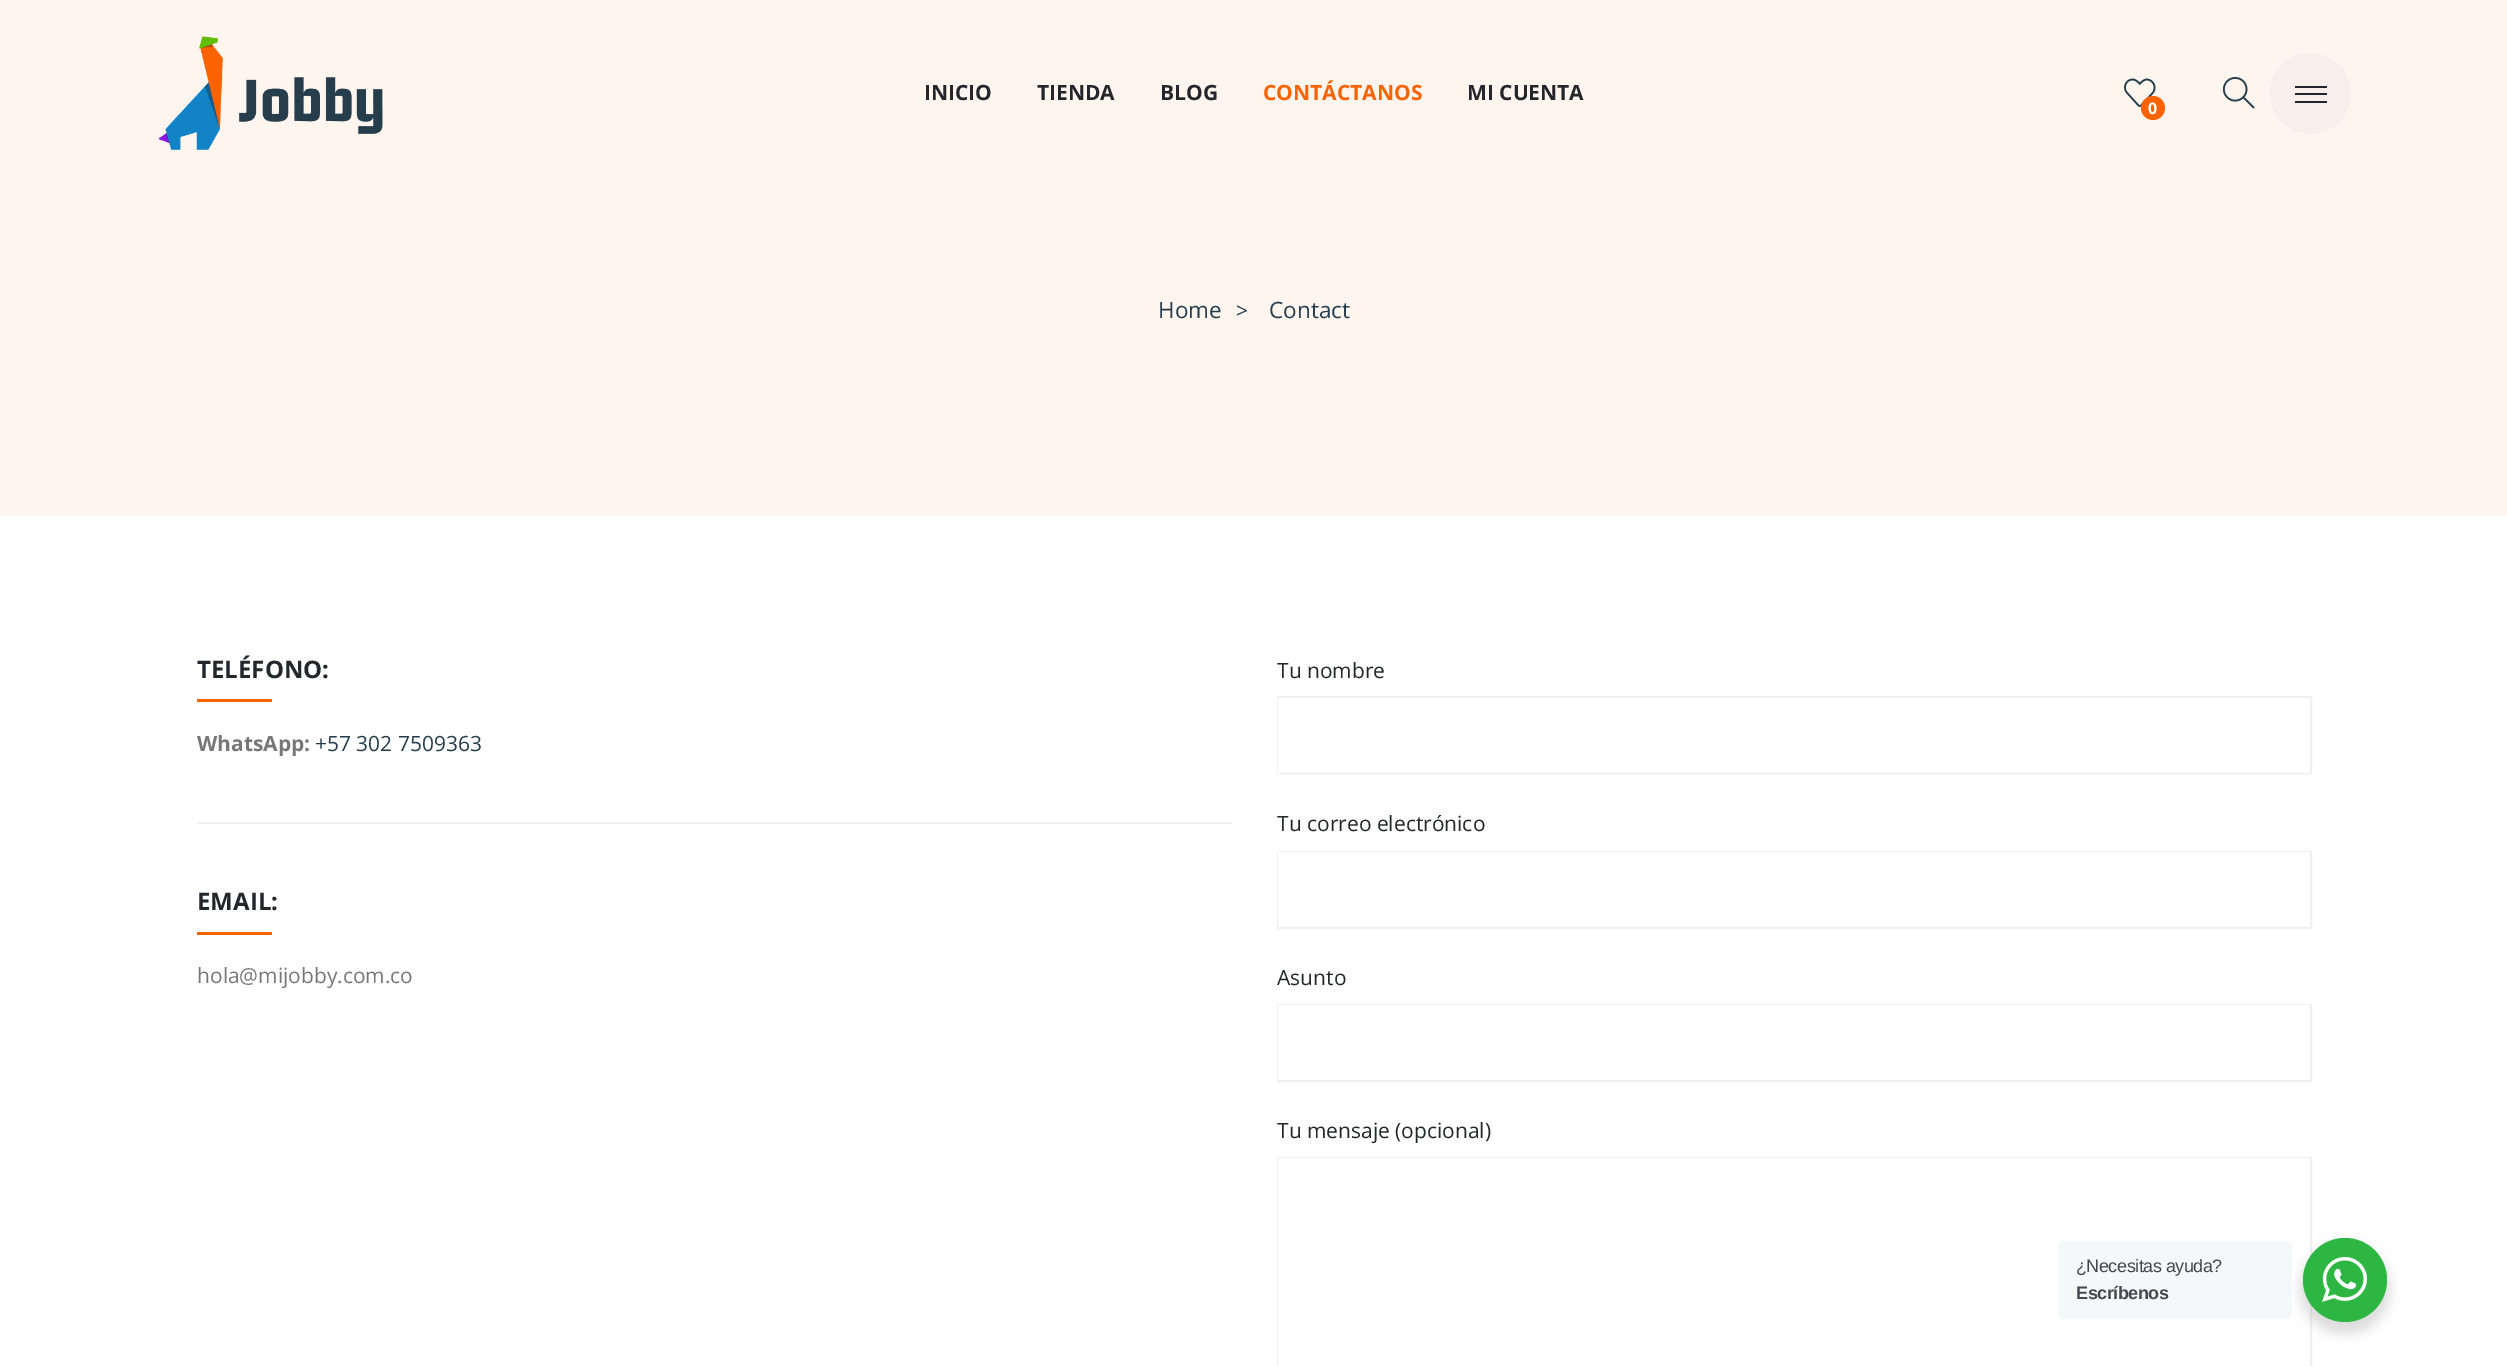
%!PS-Adobe-3.0
%%BoundingBox: 0 0 2507 1366
%%LanguageLevel: 3
%%Pages: 1
%%EndComments
%%BeginProlog
/setink { dup -16 bitshift 255 div exch dup -8 bitshift 255 and 255 div exch 255 and 255 div setrgbcolor } def
/usefont { [ exch dup neg 0 0 3 -1 roll 0 0 ] selectfont } def
/setalpha { dup .setfillconstantalpha .setstrokeconstantalpha } def
/disc { newpath 0 360 arc closepath } def
/rrect { 5 dict begin { /r /h /w /y /x } { exch def } forall
  x r add y moveto x w add y 2 copy h add r arct x w add y h add x 1 index r arct
  x y h add x y r arct x y 2 copy exch w add exch r arct closepath end } def
/softshadow { 12 dict begin { /a /b /q /h /w /y /x } { exch def } forall gsave /was 0 def
  9 -2 -9 { dup b mul 4 div /e exch def 1 sub .425 mul 2.718 exch exp 1 add a .99 .min exch div /now exch def
    1 1 now sub 1 was sub div sub setalpha /was now def
    w h .min e 2 mul add 0 gt { x e sub y e sub w e 2 mul add h e 2 mul add
      q e add b .6 mul add w h .min 2 div e add .min 0 .max rrect fill } if } for grestore end } def
/drawimage { 5 dict begin { /h /w /y /x /name } { exch def } forall
  gsave x y translate w h scale
  w h 8 [w 0 0 h 0 0] name (r) file false 3 colorimage grestore end } def
%%EndProlog
%%BeginSetup
<< /PageSize [2507 1366] /PageUsesTransparency true >> setpagedevice
%%EndSetup
%%Page: 1 1
0 .pushpdf14devicefilter
0 1366 translate 1 -1 scale
4 setmiterlimit
16#FFFFFF setink
0 0 2507 1366 rectfill
16#FEF5EF setink
0 0 2507 516 rectfill
(img1.raw) 158 36 225 114 drawimage
/OpenSans-Bold 21 usefont
16#24262B setink
[
    [(INICIO) 924 100]
    [(TIENDA) 1037 100]
    [(BLOG) 1160 100]
] { aload pop moveto show } forall
16#FB6300 setink
1263 100 moveto (CONTÁCTANOS) show
16#24262B setink
1467 100 moveto (MI CUENTA) show
(img2.raw) 2124 78 32 29 drawimage
16#FB6300 setink
2153 108 12 disc fill
/OpenSans-Bold 16 usefont
16#FFFFFF setink
2148 114 moveto (0) show
(img3.raw) 2222 77 33 32 drawimage
16#F8EFEB setink
2310.5 93.5 40.5 disc fill
[
    [2295 86 32 2 16#24262B]
    [2295 93 32 2 16#24262B]
    [2295 101 32 2 16#24262B]
] { aload pop setink rectfill } forall
/OpenSans-Regular 22.5 usefont
16#263E4C setink
1158 318 moveto (Home) show
/OpenSans-Regular 21 usefont
1236 318 moveto (>) show
/OpenSans-Regular 22.5 usefont
1269 318 moveto (Contact) show
16#F0F0F0 setink
197 822 1035 2 rectfill
/OpenSans-Bold 24 usefont
16#24262B setink
197 678 moveto (TELÉFONO:) show
16#FB6300 setink
197 699 75 3 rectfill
/OpenSans-Bold 21 usefont
16#777777 setink
197 751 moveto (WhatsApp:) show
/OpenSans-Regular 21 usefont
16#263E4C setink
315 751 moveto (+57 302 7509363) show
/OpenSans-Bold 24 usefont
16#24262B setink
197 910 moveto (EMAIL:) show
16#FB6300 setink
197 932 75 3 rectfill
/OpenSans-Regular 21 usefont
16#777777 setink
197 983 moveto (hola@mijobby.com.co) show
16#24262B setink
1277 678 moveto (Tu nombre) show
16#F0F0F0 setink
2 setlinewidth
1278 697 1033 76 rectstroke
16#FFFFFF setink
1278 698 1032 75 rectfill
16#24262B setink
1277 831 moveto (Tu correo electrónico) show
16#F0F0F0 setink
1278 852 1033 76 rectstroke
16#FFFFFF setink
1278 852 1032 75 rectfill
16#24262B setink
1277 985 moveto (Asunto) show
16#F0F0F0 setink
1278 1005 1033 76 rectstroke
16#FFFFFF setink
1278 1005 1032 75 rectfill
16#24262B setink
1277 1138 moveto (Tu mensaje \(opcional\)) show
16#F0F0F0 setink
1278 1158 1033 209 rectstroke
16#FFFFFF setink
1278 1158 1032 208 rectfill
16#000000 setink
2300 1244 90 90 45 6 0.14 softshadow
16#F5F7F9 setink
2058 1241 234 78 6 rrect fill
/LiberationSans-Regular 18 usefont
16#43474E setink
2076 1272 moveto -0.5 0 (¿Necesitas ayuda?) ashow
/LiberationSans-Bold 18 usefont
2076 1299 moveto -0.5 0 (Escríbenos) ashow
16#2DB742 setink
2345 1280 42 disc fill
(img4.raw) 2322 1257 45 45 drawimage
.poppdf14devicefilter showpage
%%EOF
